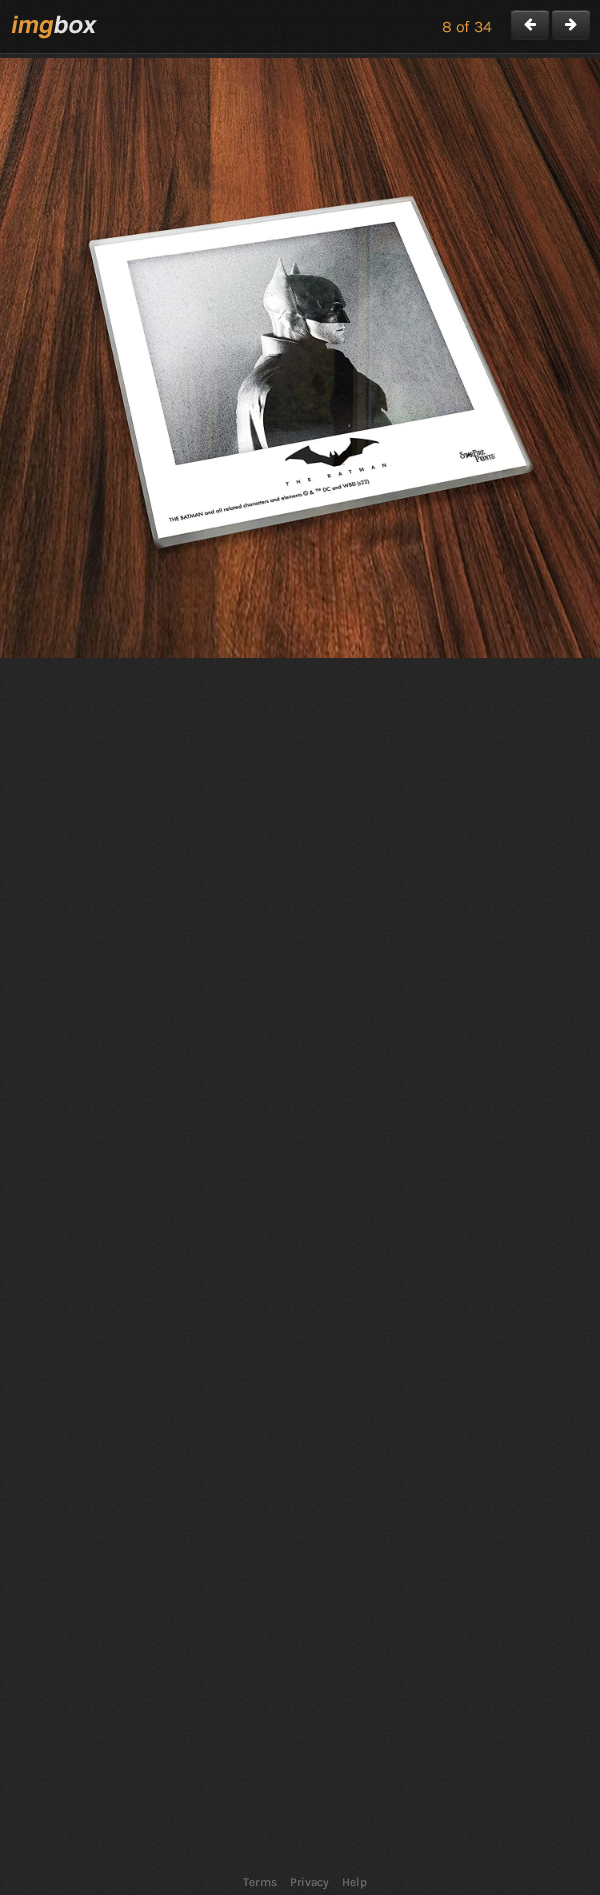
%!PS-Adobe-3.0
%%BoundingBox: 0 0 600 1895
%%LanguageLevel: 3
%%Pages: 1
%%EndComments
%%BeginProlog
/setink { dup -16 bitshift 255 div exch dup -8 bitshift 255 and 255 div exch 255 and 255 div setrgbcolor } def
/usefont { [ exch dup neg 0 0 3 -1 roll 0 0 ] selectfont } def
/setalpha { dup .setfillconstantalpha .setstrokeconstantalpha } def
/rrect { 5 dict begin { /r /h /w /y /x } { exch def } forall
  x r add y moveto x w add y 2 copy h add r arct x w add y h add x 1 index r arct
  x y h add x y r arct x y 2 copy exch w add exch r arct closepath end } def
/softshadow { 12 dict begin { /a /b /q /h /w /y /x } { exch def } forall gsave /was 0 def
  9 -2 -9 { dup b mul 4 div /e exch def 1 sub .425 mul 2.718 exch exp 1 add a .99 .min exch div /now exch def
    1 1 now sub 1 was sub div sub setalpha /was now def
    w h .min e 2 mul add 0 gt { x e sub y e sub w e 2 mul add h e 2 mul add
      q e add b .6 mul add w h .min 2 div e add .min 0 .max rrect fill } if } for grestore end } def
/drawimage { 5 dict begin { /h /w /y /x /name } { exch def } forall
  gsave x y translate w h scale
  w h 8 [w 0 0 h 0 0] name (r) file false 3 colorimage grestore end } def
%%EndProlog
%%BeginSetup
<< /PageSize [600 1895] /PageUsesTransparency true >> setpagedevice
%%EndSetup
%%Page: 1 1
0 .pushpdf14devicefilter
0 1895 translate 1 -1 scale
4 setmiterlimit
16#FFFFFF setink
0 0 600 1895 rectfill
(img1.raw) 0 54 600 1841 drawimage
16#000000 setink
0 1 600 54 0 5 0.1 softshadow
(img2.raw) 0 0 600 53 drawimage
16#373737 setink
0 53 600 1 rectfill
(img3.raw) 11 15 86 24 drawimage
/Karla-Regular 16 usefont
16#E39938 setink
442 32 moveto (8 of 34) show
16#363636 setink
511 10 38 30 4 rrect fill
gsave
511 10 38 30 4 rrect clip newpath
gsave 511 11 moveto 549 11 lineto 549 39 lineto 511 39 lineto closepath clip newpath
<< /ShadingType 2 /ColorSpace /DeviceRGB /Coords [530 11 530 39] /Extend [true true] /Function << /FunctionType 2 /Domain [0 1] /C0 [0.267 0.267 0.267] /C1 [0.133 0.133 0.133] /N 1 >> >> shfill grestore
grestore
16#696969 setink
515 12 moveto 545 12 lineto 547 12 548 13 548 15 curveto 548 10 544 11 540 11 curveto 520 11 lineto 516 11 512 10 512 15 curveto 512 13 513 12 515 12 curveto closepath fill
0.25 setalpha
16#000000 setink
547.5 38.5 moveto 547 39 546 39.5 545 39.5 curveto 515 39.5 lineto 514 39.5 513 39 512.5 38.5 curveto stroke
0.1 setalpha
512.5 38.5 moveto 512 38 511.5 37 511.5 36 curveto 511.5 14 lineto 511.5 13 512 12 512.5 11.5 curveto 513 11 514 10.5 515 10.5 curveto 545 10.5 lineto 546 10.5 547 11 547.5 11.5 curveto 548 12 548.5 13 548.5 14 curveto 548.5 36 lineto 548.5 37 548 38 547.5 38.5 curveto stroke
1 setalpha
(img4.raw) 524 18 12 13 drawimage
16#363636 setink
552 10 38 30 4 rrect fill
gsave
552 10 38 30 4 rrect clip newpath
gsave 552 11 moveto 590 11 lineto 590 39 lineto 552 39 lineto closepath clip newpath
<< /ShadingType 2 /ColorSpace /DeviceRGB /Coords [571 11 571 39] /Extend [true true] /Function << /FunctionType 2 /Domain [0 1] /C0 [0.267 0.267 0.267] /C1 [0.133 0.133 0.133] /N 1 >> >> shfill grestore
grestore
16#696969 setink
556 12 moveto 586 12 lineto 588 12 589 13 589 15 curveto 589 10 585 11 581 11 curveto 561 11 lineto 557 11 553 10 553 15 curveto 553 13 554 12 556 12 curveto closepath fill
0.25 setalpha
16#000000 setink
588.5 38.5 moveto 588 39 587 39.5 586 39.5 curveto 556 39.5 lineto 555 39.5 554 39 553.5 38.5 curveto stroke
0.1 setalpha
553.5 38.5 moveto 553 38 552.5 37 552.5 36 curveto 552.5 14 lineto 552.5 13 553 12 553.5 11.5 curveto 554 11 555 10.5 556 10.5 curveto 586 10.5 lineto 587 10.5 588 11 588.5 11.5 curveto 589 12 589.5 13 589.5 14 curveto 589.5 36 lineto 589.5 37 589 38 588.5 38.5 curveto stroke
1 setalpha
(img5.raw) 565 18 12 13 drawimage
(img6.raw) 0 58 600 600 drawimage
/Karla-Regular 12 usefont
16#808080 setink
[
    [(Terms) 243 1886]
    [(Privacy) 290 1886]
    [(Help) 342 1886]
] { aload pop moveto show } forall
.poppdf14devicefilter showpage
%%EOF
